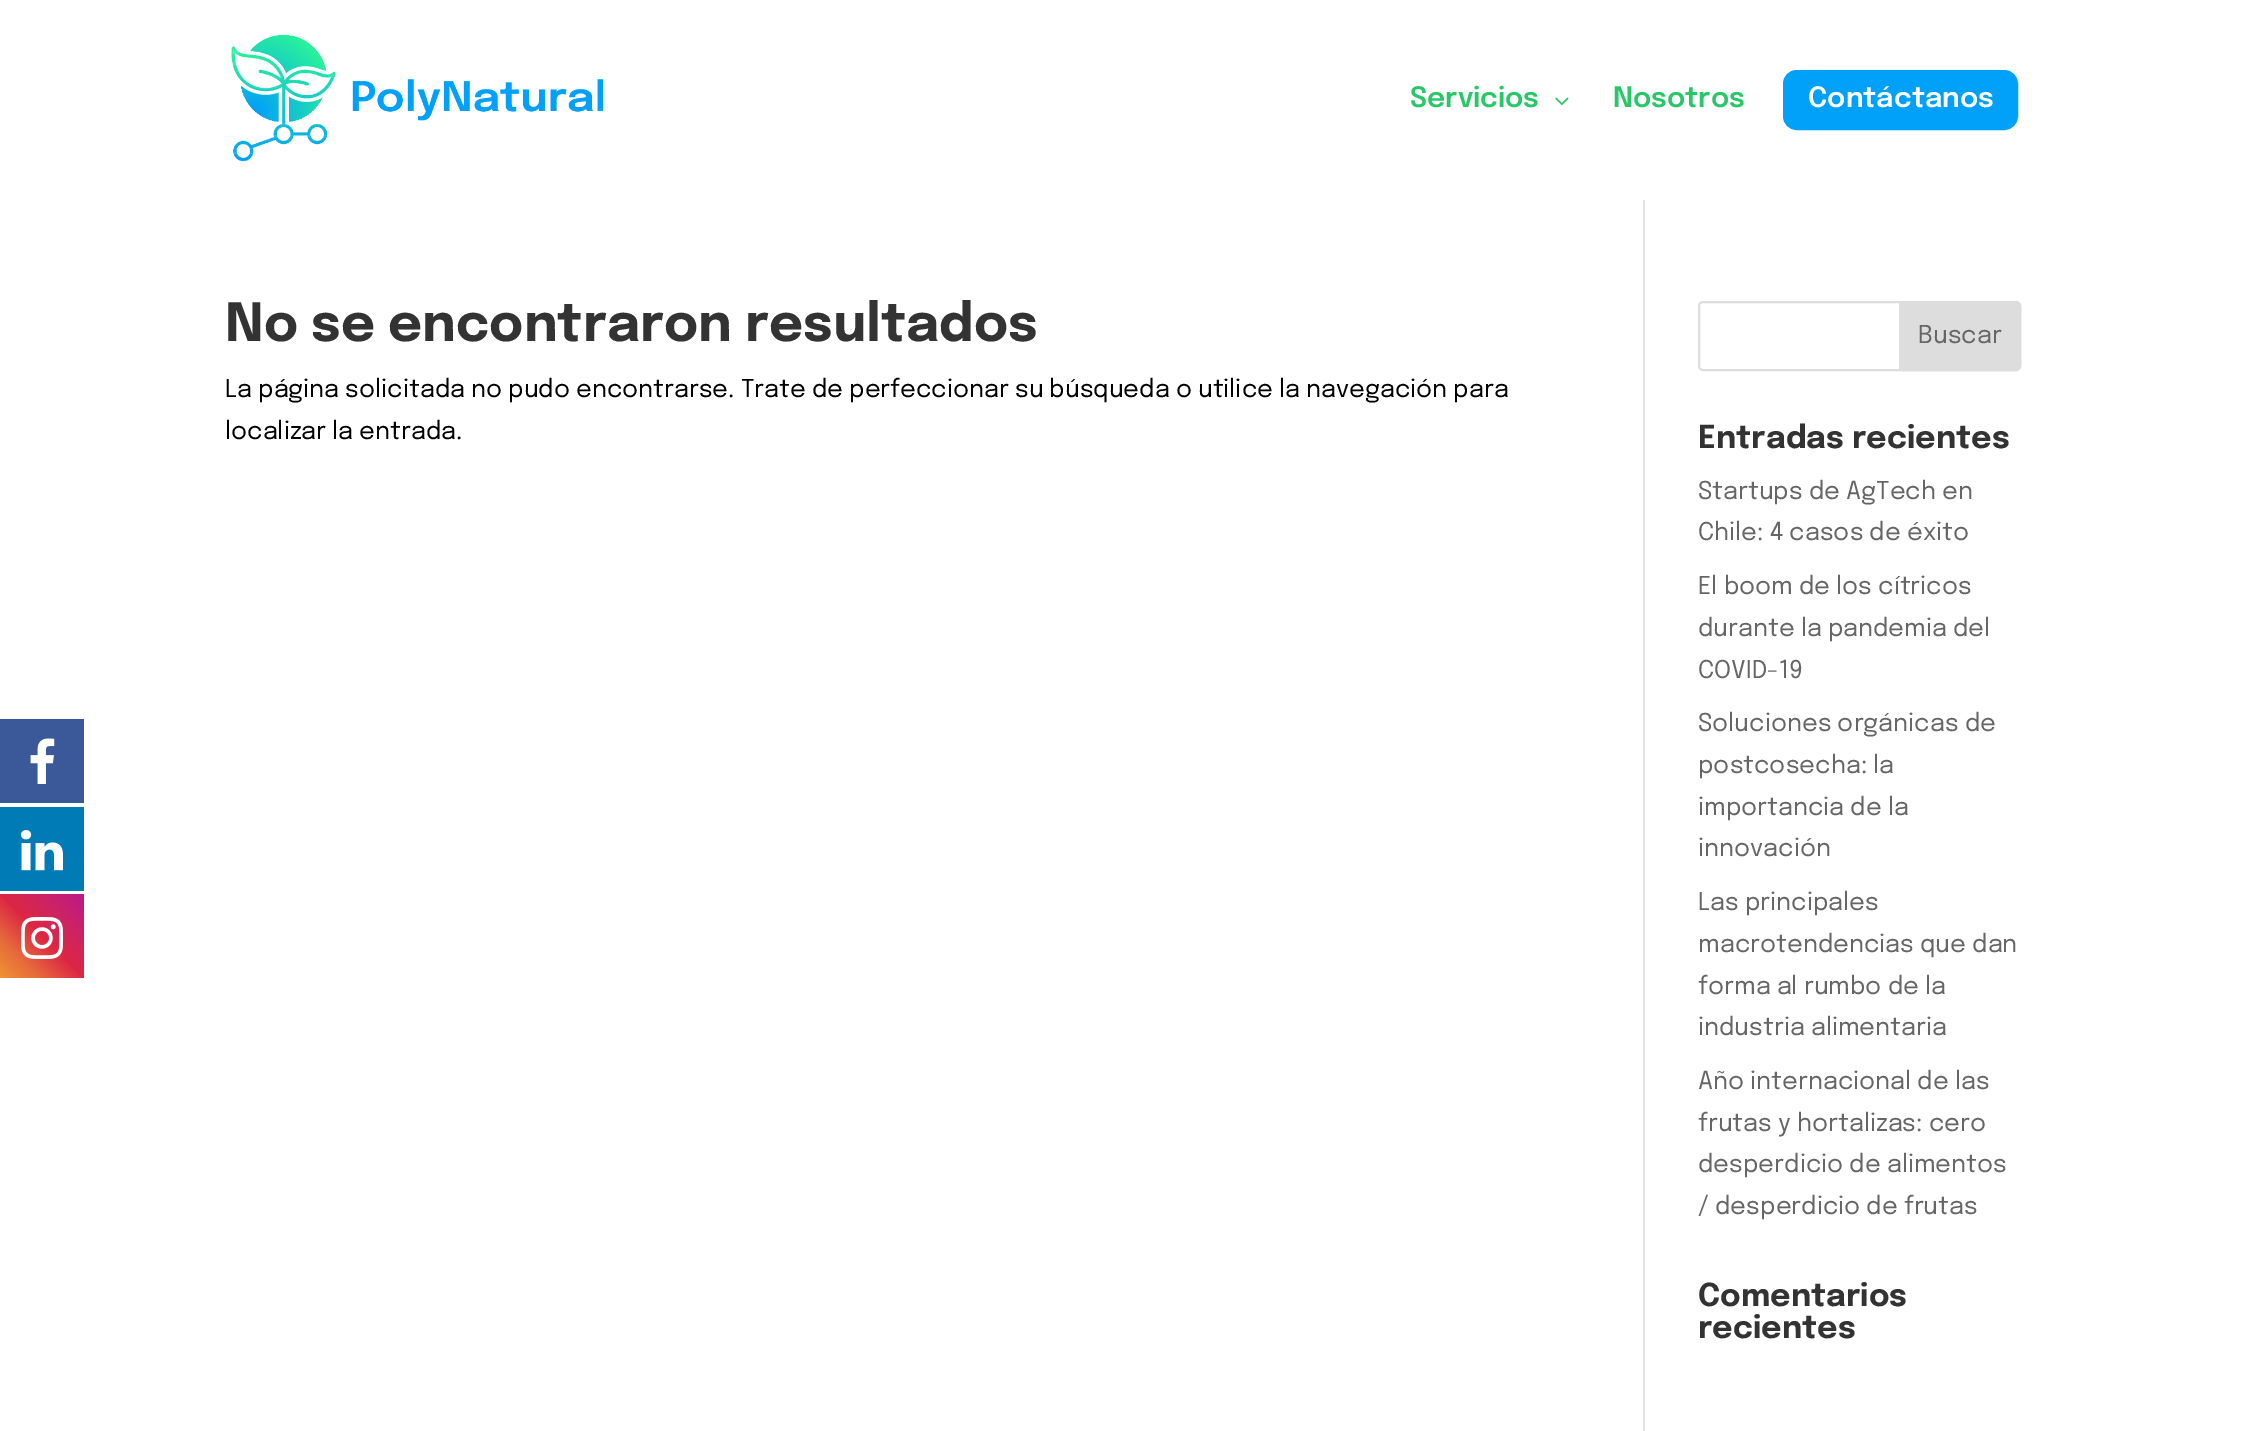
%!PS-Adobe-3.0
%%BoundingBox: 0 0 2244 1431
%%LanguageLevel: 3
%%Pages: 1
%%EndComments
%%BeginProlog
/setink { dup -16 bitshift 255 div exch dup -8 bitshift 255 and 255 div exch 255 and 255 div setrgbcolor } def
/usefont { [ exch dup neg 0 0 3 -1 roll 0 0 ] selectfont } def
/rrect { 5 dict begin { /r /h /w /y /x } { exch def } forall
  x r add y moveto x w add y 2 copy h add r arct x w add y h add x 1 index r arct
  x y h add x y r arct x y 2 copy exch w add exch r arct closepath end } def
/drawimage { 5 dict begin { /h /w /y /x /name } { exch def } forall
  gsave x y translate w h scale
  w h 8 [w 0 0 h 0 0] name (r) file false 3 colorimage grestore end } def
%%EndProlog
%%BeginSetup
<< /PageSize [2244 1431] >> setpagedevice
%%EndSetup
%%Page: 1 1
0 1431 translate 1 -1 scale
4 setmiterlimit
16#FFFFFF setink
0 0 2244 1431 rectfill
16#3B5998 setink
0 719 84 84 rectfill
(img1.raw) 30 738 25 46 drawimage
16#007BB6 setink
0 807 84 84 rectfill
(img2.raw) 21 830 42 41 drawimage
gsave 0 894 moveto 84 894 lineto 84 978 lineto 0 978 lineto closepath clip newpath
<< /ShadingType 2 /ColorSpace /DeviceRGB /Coords [0 978 84 894] /Extend [true true] /Function << /FunctionType 3 /Domain [0 1] /Functions [<< /FunctionType 2 /Domain [0 1] /C0 [0.941 0.58 0.2] /C1 [0.902 0.408 0.235] /N 1 >> << /FunctionType 2 /Domain [0 1] /C0 [0.902 0.408 0.235] /C1 [0.863 0.153 0.263] /N 1 >> << /FunctionType 2 /Domain [0 1] /C0 [0.863 0.153 0.263] /C1 [0.8 0.137 0.4] /N 1 >> << /FunctionType 2 /Domain [0 1] /C0 [0.8 0.137 0.4] /C1 [0.737 0.094 0.533] /N 1 >>] /Bounds [0.25 0.5 0.75] /Encode [0 1 0 1 0 1 0 1] >> >> shfill grestore
(img3.raw) 21 917 42 42 drawimage
(img4.raw) 231 35 373 127 drawimage
/Epilogue-SemiBold 28 usefont
16#28C768 setink
1410 107 moveto (Servicios) show
(img5.raw) 1555 97 14 8 drawimage
1613 107 moveto (Nosotros) show
16#01A0F9 setink
1786.5 73.5 228 53 10.5 rrect gsave fill grestore
7 setlinewidth
stroke
16#FFFFFF setink
1808 107 moveto (Contáctanos) show
16#E2E2E2 setink
1643 200 2 1231 rectfill
/Epilogue-Bold 52.5 usefont
16#333333 setink
225 341 moveto (No se encontraron resultados) show
/Epilogue-Regular 24.5 usefont
16#000000 setink
225 397 moveto (La página solicitada no pudo encontrarse. Trate de perfeccionar su búsqueda o utilice la navegación para) show
225 439 moveto (localizar la entrada.) show
16#DDDDDD setink
2 setlinewidth
1699 302 321 68 4 rrect stroke
1900 302 moveto 2016 302 lineto 2018 302 2020 304 2020 306 curveto 2020 366 lineto 2020 368 2018 370 2016 370 curveto 1900 370 lineto closepath gsave fill grestore
stroke
16#666666 setink
1918 343 moveto (Buscar) show
/Epilogue-Bold 31.5 usefont
16#333333 setink
1698 448 moveto (Entradas recientes) show
/Epilogue-Regular 24.5 usefont
16#666666 setink
[
    [(Startups de AgTech en) 1698 499]
    [(Chile: 4 casos de éxito) 1698 540]
    [(El boom de los cítricos) 1698 594]
    [(durante la pandemia del) 1698 636]
    [(COVID-19) 1698 678]
    [(Soluciones orgánicas de) 1698 731]
    [(postcosecha: la) 1698 773]
    [(importancia de la) 1698 815]
    [(innovación) 1698 856]
    [(Las principales) 1698 910]
    [(macrotendencias que dan) 1698 952]
    [(forma al rumbo de la) 1698 994]
    [(industria alimentaria) 1698 1035]
    [(Año internacional de las) 1698 1089]
    [(frutas y hortalizas: cero) 1698 1131]
    [(desperdicio de alimentos) 1698 1172]
    [(/ desperdicio de frutas) 1698 1214]
] { aload pop moveto show } forall
/Epilogue-Bold 31.5 usefont
16#333333 setink
1698 1306 moveto (Comentarios) show
1698 1338 moveto (recientes) show
showpage
%%EOF
